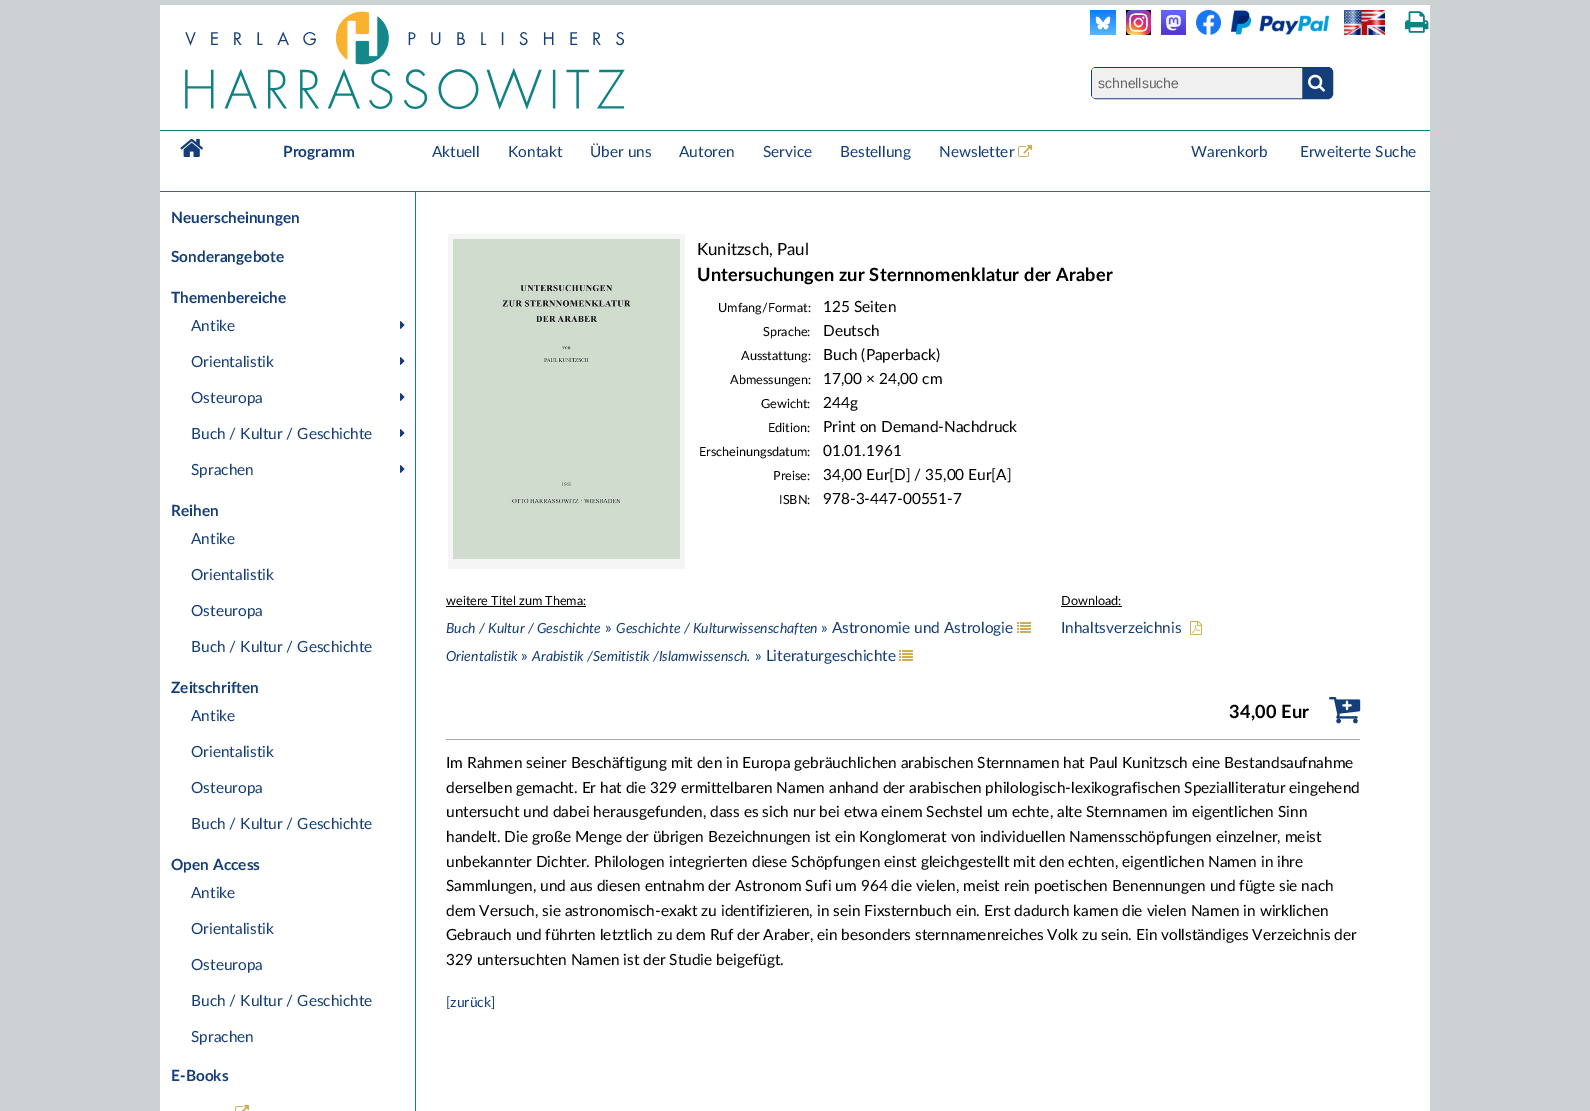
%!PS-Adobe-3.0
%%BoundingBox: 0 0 1590 1111
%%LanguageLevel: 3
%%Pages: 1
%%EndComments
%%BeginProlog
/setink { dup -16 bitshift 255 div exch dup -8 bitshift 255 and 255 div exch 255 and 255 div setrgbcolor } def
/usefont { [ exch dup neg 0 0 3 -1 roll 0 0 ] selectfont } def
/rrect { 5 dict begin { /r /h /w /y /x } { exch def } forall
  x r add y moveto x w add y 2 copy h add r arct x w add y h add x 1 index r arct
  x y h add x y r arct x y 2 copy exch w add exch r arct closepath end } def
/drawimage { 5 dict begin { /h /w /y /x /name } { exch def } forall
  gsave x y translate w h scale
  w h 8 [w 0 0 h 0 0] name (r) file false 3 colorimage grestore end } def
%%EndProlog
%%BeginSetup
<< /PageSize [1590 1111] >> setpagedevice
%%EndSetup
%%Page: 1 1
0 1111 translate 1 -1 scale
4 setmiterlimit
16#CCD2D3 setink
0 0 1590 1111 rectfill
16#FFFFFF setink
160 5 1270 186 rectfill
(img1.raw) 185 11 440 99 drawimage
(img2.raw) 1090 10 26 25 drawimage
(img3.raw) 1126 10 25 25 drawimage
(img4.raw) 1161 10 25 25 drawimage
(img5.raw) 1196 10 25 25 drawimage
(img6.raw) 1231 10 98 25 drawimage
(img7.raw) 1344 10 41 25 drawimage
(img8.raw) 1405 11 24 22 drawimage
16#143E7A setink
1091.5 67.5 241 31 4.5 rrect gsave fill grestore
stroke
16#F0F0F0 setink
1095 68.5 moveto 1301.5 68.5 lineto 1301.5 97.5 lineto 1095 97.5 lineto 1093.5 97.5 1092.5 96.5 1092.5 95 curveto 1092.5 71 lineto 1092.5 69.5 1093.5 68.5 1095 68.5 curveto closepath gsave fill grestore
stroke
/LiberationSans-Regular 14 usefont
16#666666 setink
1098 88 moveto (schnellsuche) show
(img9.raw) 1308 74 17 18 drawimage
16#0F8284 setink
160 130 1270 1 rectfill
160 191 1270 1 rectfill
(img10.raw) 180 139 23 18 drawimage
/Lato-Bold 15.4 usefont
16#143E7A setink
283 157 moveto (Programm) show
/Lato-Regular 15.4 usefont
[
    [(Aktuell) 432 157]
    [(Kontakt) 508 157]
    [(Über uns) 590 157]
    [(Autoren) 679 157]
    [(Service) 763 157]
    [(Bestellung) 840 157]
    [(Newsletter) 939 157]
] { aload pop moveto show } forall
(img11.raw) 1018 145 14 12 drawimage
1191 157 moveto (Warenkorb) show
1300 157 moveto (Erweiterte Suche) show
16#FFFFFF setink
160 192 1270 919 rectfill
16#0F8284 setink
415 192 1 919 rectfill
/Lato-Bold 15.4 usefont
16#143E7A setink
[
    [(Neuerscheinungen) 171 223]
    [(Sonderangebote) 171 262]
    [(Themenbereiche) 171 303]
] { aload pop moveto show } forall
/Lato-Regular 15.4 usefont
191 331 moveto (Antike) show
(img12.raw) 400 321 5 8 drawimage
191 367 moveto (Orientalistik) show
(img12.raw) 400 357 5 8 drawimage
191 403 moveto (Osteuropa) show
(img12.raw) 400 393 5 8 drawimage
191 439 moveto (Buch / Kultur / Geschichte) show
(img12.raw) 400 429 5 8 drawimage
191 475 moveto (Sprachen) show
(img12.raw) 400 465 5 8 drawimage
/Lato-Bold 15.4 usefont
171 516 moveto (Reihen) show
/Lato-Regular 15.4 usefont
[
    [(Antike) 191 544]
    [(Orientalistik) 191 580]
    [(Osteuropa) 191 616]
    [(Buch / Kultur / Geschichte) 191 652]
] { aload pop moveto show } forall
/Lato-Bold 15.4 usefont
171 693 moveto (Zeitschriften) show
/Lato-Regular 15.4 usefont
[
    [(Antike) 191 721]
    [(Orientalistik) 191 757]
    [(Osteuropa) 191 793]
    [(Buch / Kultur / Geschichte) 191 829]
] { aload pop moveto show } forall
/Lato-Bold 15.4 usefont
171 870 moveto (Open Access) show
/Lato-Regular 15.4 usefont
[
    [(Antike) 191 898]
    [(Orientalistik) 191 934]
    [(Osteuropa) 191 970]
    [(Buch / Kultur / Geschichte) 191 1006]
    [(Sprachen) 191 1042]
] { aload pop moveto show } forall
/Lato-Bold 15.4 usefont
171 1081 moveto (E-Books) show
(img13.raw) 235 1105 14 6 drawimage
16#F5F5F5 setink
448 234 237 335 rectfill
(img14.raw) 453 239 227 320 drawimage
/Lato-Regular 16.75 usefont
16#000000 setink
697 255 moveto (Kunitzsch, Paul) show
/Lato-Bold 18.2 usefont
697 281 moveto 0.2 0 (Untersuchungen zur Sternnomenklatur der Araber) ashow
/Lato-Regular 12.6 usefont
718 312 moveto (Umfang/Format:) show
/Lato-Regular 15.4 usefont
823 312 moveto (125 Seiten) show
/Lato-Regular 12.6 usefont
763 336 moveto (Sprache:) show
/Lato-Regular 15.4 usefont
823 336 moveto (Deutsch) show
/Lato-Regular 12.6 usefont
741 360 moveto (Ausstattung:) show
/Lato-Regular 15.4 usefont
823 360 moveto (Buch \(Paperback\)) show
/Lato-Regular 12.6 usefont
730 384 moveto (Abmessungen:) show
/Lato-Regular 15.4 usefont
823 384 moveto (17,00 × 24,00 cm) show
/Lato-Regular 12.6 usefont
761 408 moveto (Gewicht:) show
/Lato-Regular 15.4 usefont
823 408 moveto (244g) show
/Lato-Regular 12.6 usefont
768 432 moveto (Edition:) show
/Lato-Regular 15.4 usefont
823 432 moveto (Print on Demand-Nachdruck) show
/Lato-Regular 12.6 usefont
699 456 moveto (Erscheinungsdatum:) show
/Lato-Regular 15.4 usefont
823 456 moveto (01.01.1961) show
/Lato-Regular 12.6 usefont
773 480 moveto (Preise:) show
/Lato-Regular 15.4 usefont
823 480 moveto (34,00 Eur[D] / 35,00 Eur[A]) show
/Lato-Regular 12.6 usefont
779 504 moveto (ISBN:) show
/Lato-Regular 15.4 usefont
823 504 moveto (978-3-447-00551-7) show
/Lato-Regular 12.6 usefont
446 605 moveto (weitere Titel zum Thema:) show
446 606 140 1 rectfill
/Lato-Italic 14 usefont
16#143E7A setink
446 633 moveto (Buch / Kultur / Geschichte) show
/Lato-Regular 15.4 usefont
605 633 moveto (») show
/Lato-Italic 14 usefont
616 633 moveto (Geschichte / Kulturwissenschaften) show
/Lato-Regular 15.4 usefont
821 633 moveto (» Astronomie und Astrologie) show
(img15.raw) 1017 622 14 11 drawimage
/Lato-Italic 14 usefont
446 661 moveto (Orientalistik) show
/Lato-Regular 15.4 usefont
521 661 moveto (») show
/Lato-Italic 14 usefont
532 661 moveto (Arabistik /Semitistik /Islamwissensch.) show
/Lato-Regular 15.4 usefont
755 661 moveto (» Literaturgeschichte) show
(img15.raw) 899 650 14 11 drawimage
/Lato-Regular 12.6 usefont
16#000000 setink
1061 605 moveto (Download:) show
1061 606 61 1 rectfill
/Lato-Regular 15.4 usefont
16#143E7A setink
1061 633 moveto (Inhaltsverzeichnis) show
(img16.raw) 1190 621 12 14 drawimage
/Lato-Bold 18.2 usefont
16#000000 setink
1229 718 moveto 0.2 0 (34,00 Eur) ashow
(img17.raw) 1329 697 32 27 drawimage
16#AAAAAA setink
446 739 914 1 rectfill
/Lato-Regular 15.4 usefont
16#000000 setink
[
    [(Im Rahmen seiner Beschäftigung mit den in Europa gebräuchlichen arabischen Sternnamen hat Paul Kunitzsch eine Bestandsaufnahme) 446 768]
    [(derselben gemacht. Er hat die 329 ermittelbaren Namen anhand der arabischen philologisch-lexikografischen Spezialliteratur eingehend) 446 793]
    [(untersucht und dabei herausgefunden, dass es sich nur bei etwa einem Sechstel um echte, alte Sternnamen im eigentlichen Sinn) 446 817]
    [(handelt. Die große Menge der übrigen Bezeichnungen ist ein Konglomerat von individuellen Namensschöpfungen einzelner, meist) 446 842]
    [(unbekannter Dichter. Philologen integrierten diese Schöpfungen einst gleichgestellt mit den echten, eigentlichen Namen in ihre) 446 867]
    [(Sammlungen, und aus diesen entnahm der Astronom Sufi um 964 die vielen, meist rein poetischen Benennungen und fügte sie nach) 446 891]
    [(dem Versuch, sie astronomisch-exakt zu identifizieren, in sein Fixsternbuch ein. Erst dadurch kamen die vielen Namen in wirklichen) 446 916]
    [(Gebrauch und führten letztlich zu dem Ruf der Araber, ein besonders sternnamenreiches Volk zu sein. Ein vollständiges Verzeichnis der) 446 940]
    [(329 untersuchten Namen ist der Studie beigefügt.) 446 965]
] { aload pop moveto show } forall
/Lato-Regular 14 usefont
16#143E7A setink
446 1007 moveto ([zurück]) show
showpage
%%EOF
